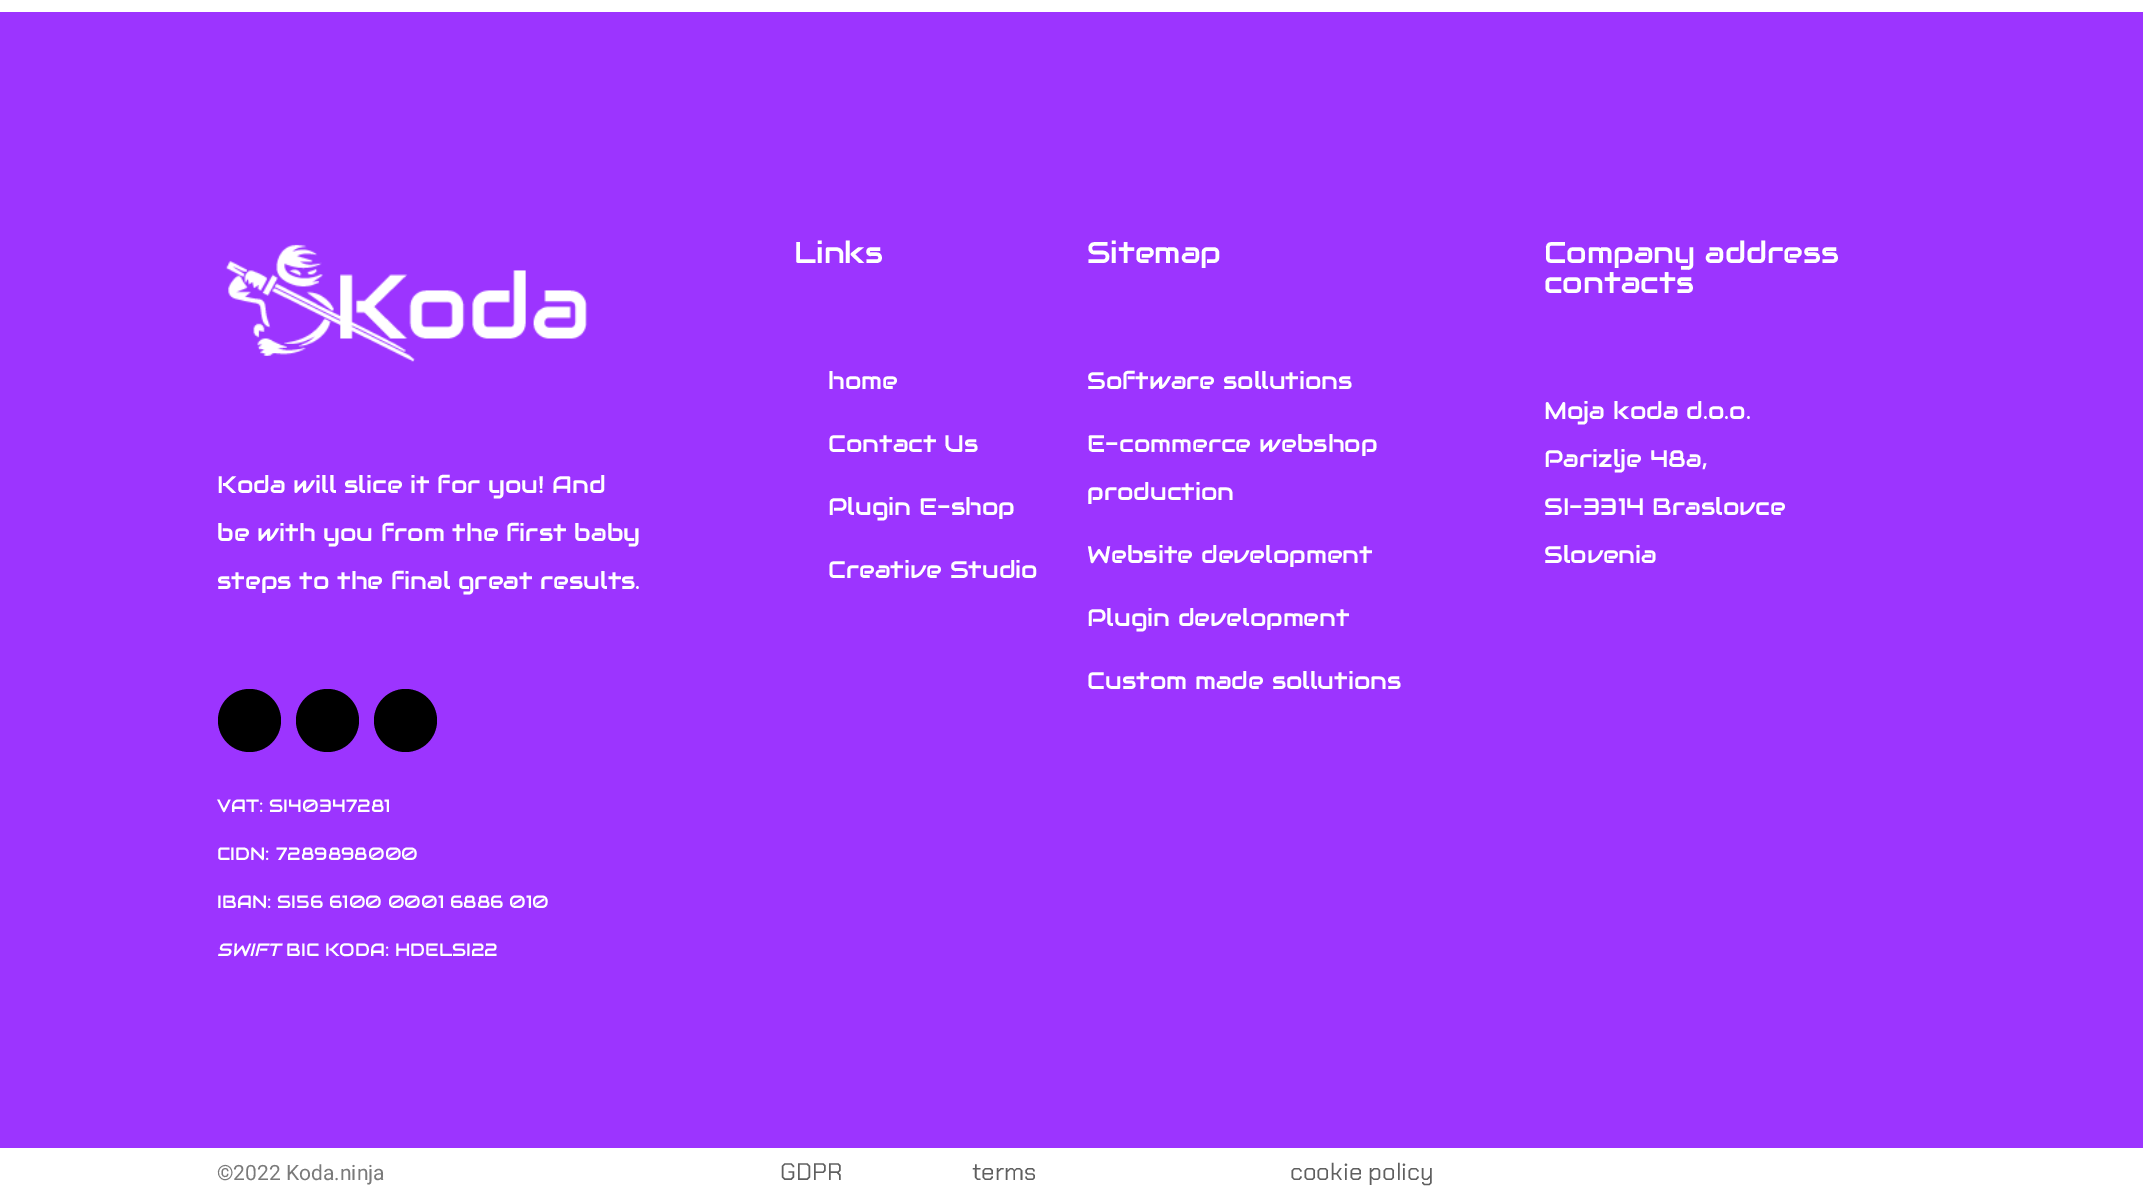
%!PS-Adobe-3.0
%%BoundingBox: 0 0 2143 1193
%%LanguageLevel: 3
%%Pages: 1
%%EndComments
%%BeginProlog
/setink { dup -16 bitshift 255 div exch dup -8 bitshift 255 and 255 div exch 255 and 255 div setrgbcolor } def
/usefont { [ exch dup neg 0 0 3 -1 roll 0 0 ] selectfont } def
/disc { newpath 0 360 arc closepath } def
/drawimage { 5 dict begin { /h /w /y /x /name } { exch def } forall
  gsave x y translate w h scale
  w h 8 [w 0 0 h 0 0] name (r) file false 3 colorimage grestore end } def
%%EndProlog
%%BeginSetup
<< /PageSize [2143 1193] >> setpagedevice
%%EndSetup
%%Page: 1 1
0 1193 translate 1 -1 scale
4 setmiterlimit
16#FFFFFF setink
0 0 2143 1193 rectfill
16#9C34FF setink
0 12 2143 1136 rectfill
/Audiowide-Regular 30 usefont
16#FFFFFF setink
794 263 moveto (Links) show
/Audiowide-Regular 24 usefont
[
    [(home) 828 389]
    [(Contact Us) 828 452]
    [(Plugin E-shop) 828 515]
    [(Creative Studio) 828 578]
] { aload pop moveto show } forall
/Audiowide-Regular 30 usefont
1087 263 moveto (Sitemap) show
/Audiowide-Regular 24 usefont
[
    [(Software sollutions) 1087 389]
    [(E-commerce webshop) 1087 452]
    [(production) 1087 500]
    [(Website development) 1087 563]
    [(Plugin development) 1087 626]
    [(Custom made sollutions) 1087 689]
] { aload pop moveto show } forall
/Audiowide-Regular 30 usefont
1544 263 moveto (Company address) show
1544 293 moveto (contacts) show
/Audiowide-Regular 24 usefont
[
    [(Moja koda d.o.o.) 1544 419]
    [(Parizlje 48a,) 1544 467]
    [(SI-3314 Braslovce) 1544 515]
    [(Slovenia) 1544 563]
] { aload pop moveto show } forall
(img1.raw) 225 244 363 118 drawimage
[
    [(Koda will slice it for you! And) 217 493]
    [(be with you from the first baby) 217 541]
    [(steps to the final great results.) 217 589]
] { aload pop moveto show } forall
16#000000 setink
249.5 720.5 31.5 disc fill
327.5 720.5 31.5 disc fill
405.5 720.5 31.5 disc fill
/Audiowide-Regular 18 usefont
16#FFFFFF setink
[
    [(VAT: SI40347281) 217 812]
    [(CIDN: 7289898000) 217 860]
    [(IBAN: SI56 6100 0001 6886 010) 217 908]
] { aload pop moveto show } forall
/Audiowide-Italic 18 usefont
217 956 moveto (SWIFT) show
/Audiowide-Regular 18 usefont
286 956 moveto (BIC KODA: HDELSI22) show
/Roboto-Regular 21 usefont
16#7A7A7A setink
217 1180 moveto (©2022 Koda.ninja) show
/ChakraPetch-Regular 24 usefont
16#5F5F5F setink
[
    [(GDPR) 780 1180]
    [(terms) 972 1180]
    [(cookie policy) 1290 1180]
] { aload pop moveto show } forall
showpage
%%EOF
